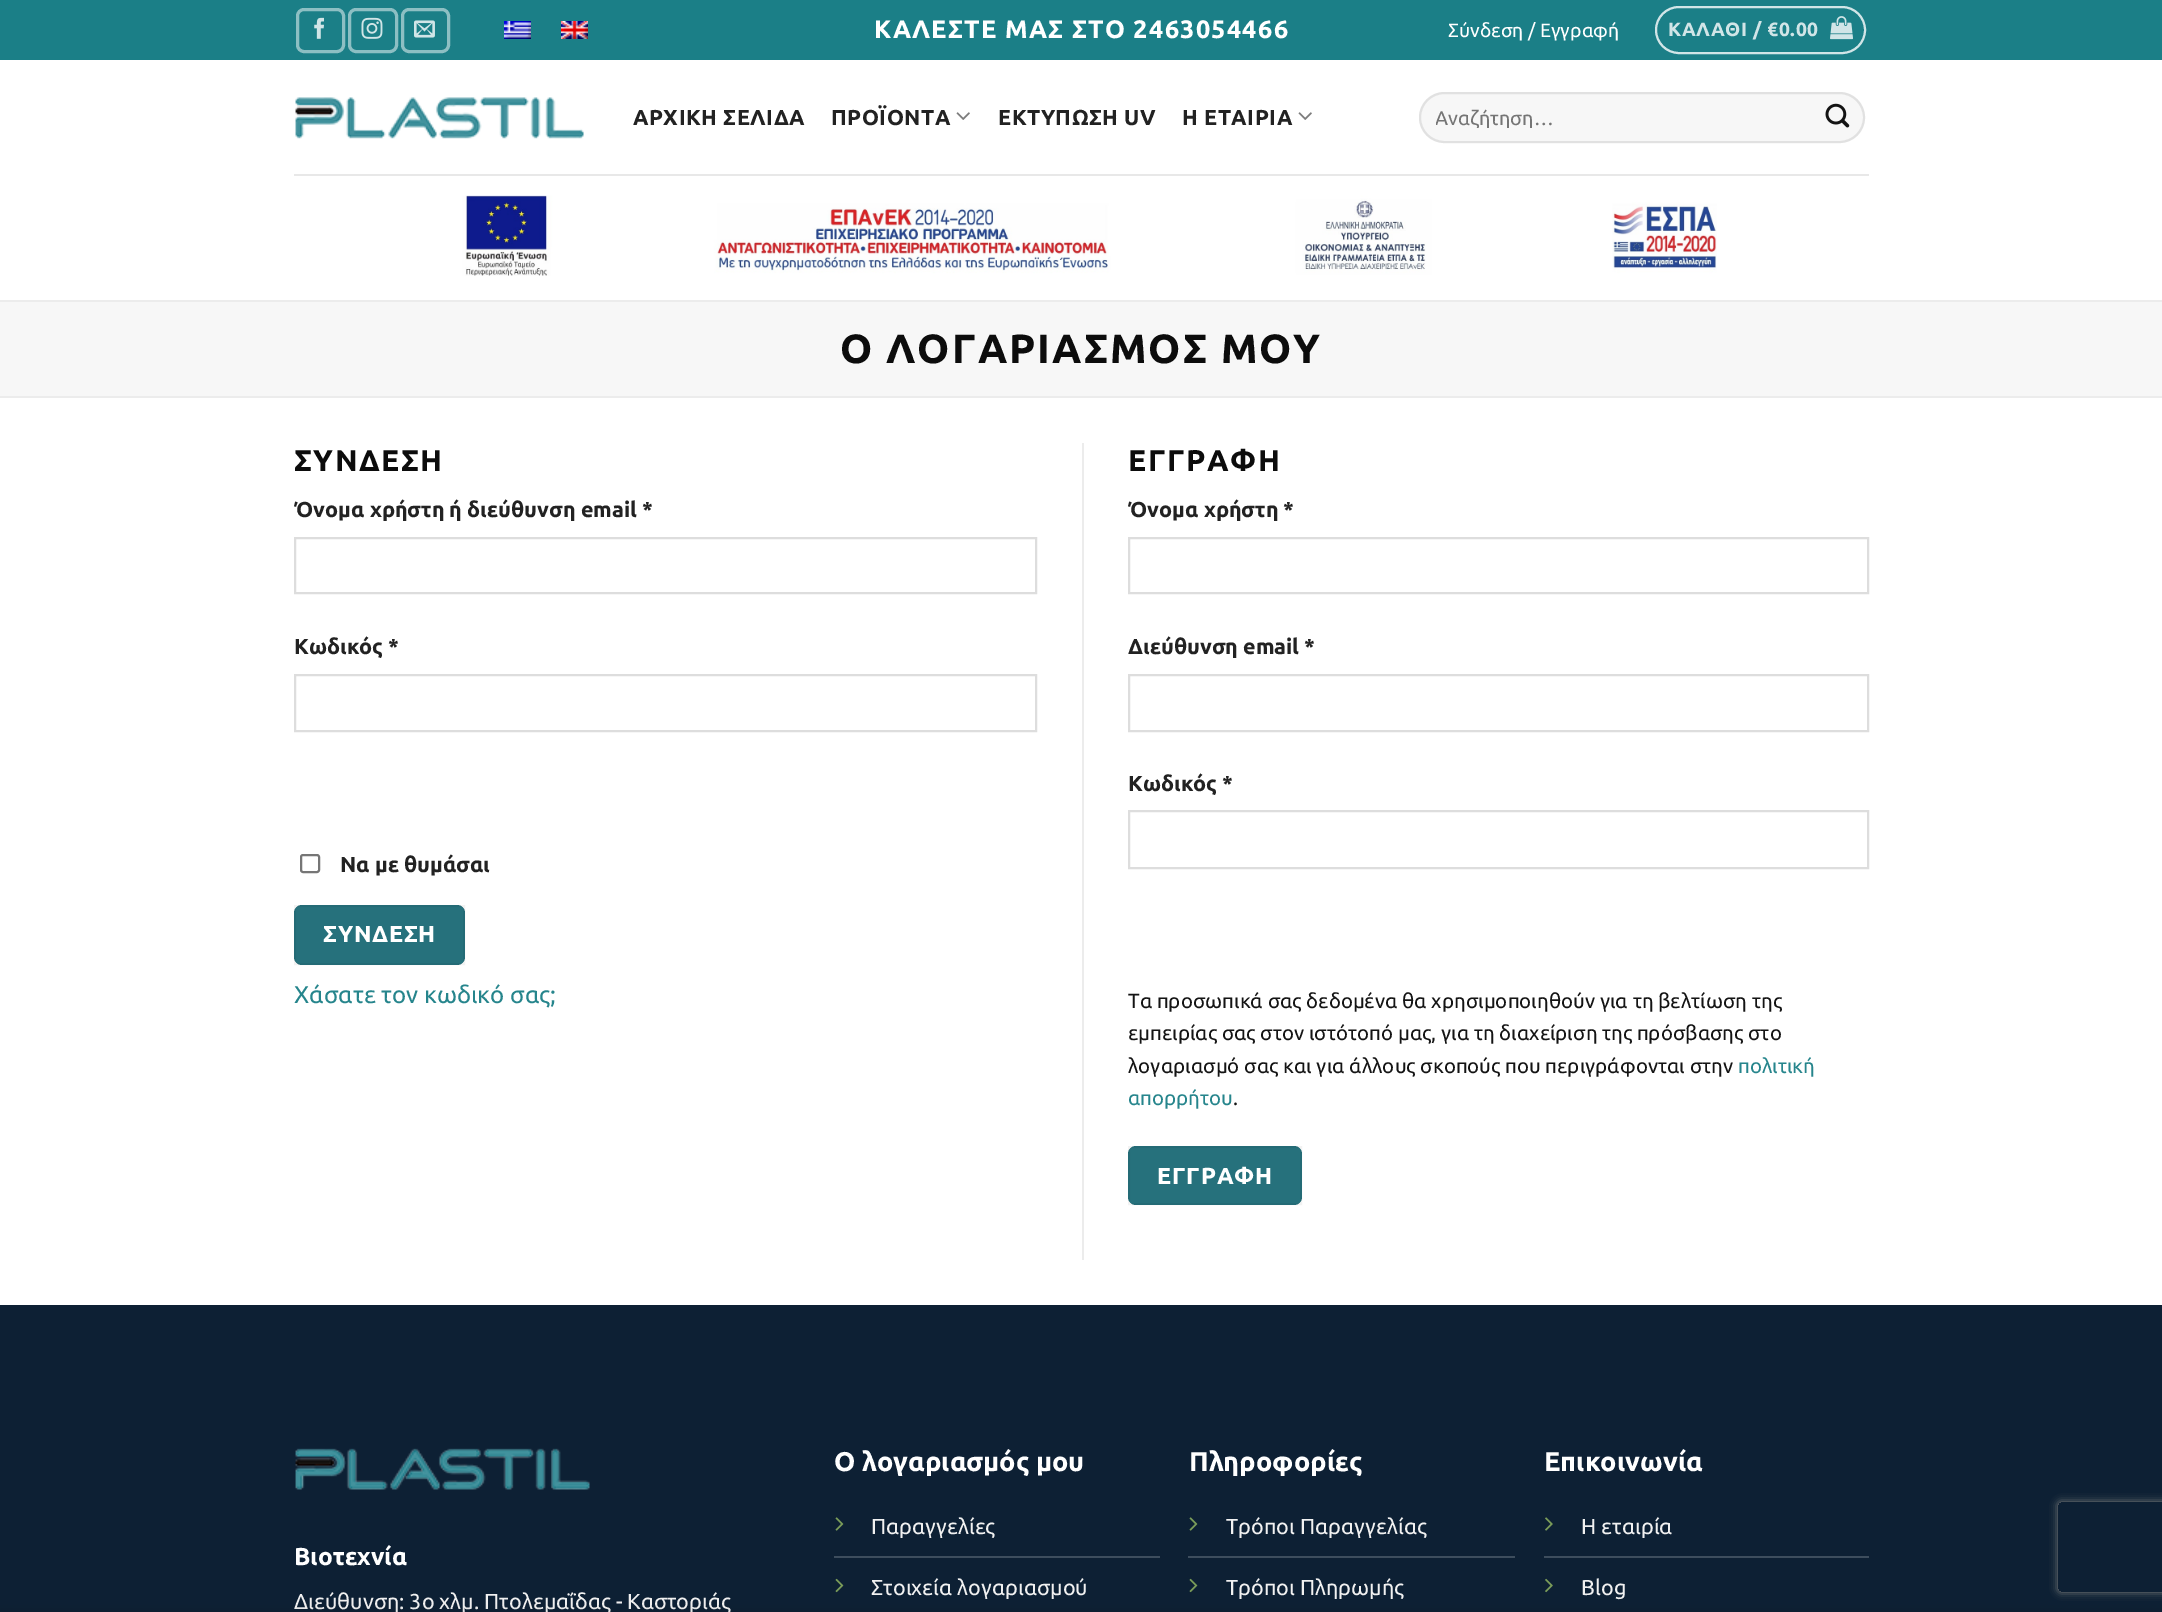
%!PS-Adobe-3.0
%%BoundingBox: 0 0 2162 1612
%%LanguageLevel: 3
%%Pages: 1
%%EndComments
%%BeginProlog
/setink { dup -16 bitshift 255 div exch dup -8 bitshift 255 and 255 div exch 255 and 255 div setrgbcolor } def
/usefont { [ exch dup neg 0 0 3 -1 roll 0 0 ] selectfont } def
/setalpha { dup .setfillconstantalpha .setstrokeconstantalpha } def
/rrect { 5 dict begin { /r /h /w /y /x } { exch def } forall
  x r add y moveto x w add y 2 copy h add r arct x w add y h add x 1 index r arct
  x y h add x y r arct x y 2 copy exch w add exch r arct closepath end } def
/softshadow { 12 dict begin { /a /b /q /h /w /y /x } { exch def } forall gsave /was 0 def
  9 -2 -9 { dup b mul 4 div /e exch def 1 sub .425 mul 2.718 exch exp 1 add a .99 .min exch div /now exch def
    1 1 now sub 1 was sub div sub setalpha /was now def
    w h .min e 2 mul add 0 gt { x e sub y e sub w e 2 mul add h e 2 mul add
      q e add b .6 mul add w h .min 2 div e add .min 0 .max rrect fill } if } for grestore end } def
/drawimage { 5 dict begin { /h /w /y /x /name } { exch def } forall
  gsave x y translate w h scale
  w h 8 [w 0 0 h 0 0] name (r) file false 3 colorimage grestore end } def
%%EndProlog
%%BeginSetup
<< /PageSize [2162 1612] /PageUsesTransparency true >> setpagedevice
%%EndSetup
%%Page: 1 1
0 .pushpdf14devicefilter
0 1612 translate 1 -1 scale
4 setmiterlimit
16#FFFFFF setink
0 0 2162 1612 rectfill
16#1B7F87 setink
0 0 2162 60 rectfill
16#8DBFC3 setink
3 setlinewidth
297.5 9.5 46 42 6.5 rrect stroke
(img1.raw) 314 17 10 22 drawimage
349.5 9.5 47 42 6.5 rrect stroke
(img2.raw) 361 17 22 22 drawimage
402.5 9.5 46 42 6.5 rrect stroke
(img3.raw) 414 20 21 18 drawimage
(img4.raw) 504 21 27 18 drawimage
(img5.raw) 561 21 27 18 drawimage
/Ubuntu-Bold 25.25 usefont
16#FFFFFF setink
874 38 moveto 1.25 0 (ΚΑΛΕΣΤΕ ΜΑΣ ΣΤΟ 2463054466) ashow
/Ubuntu-Regular 19.25 usefont
1448 37 moveto (Σύνδεση / Εγγραφή) show
16#D1E5E7 setink
2 setlinewidth
1656 7 209 46 23 rrect stroke
/Ubuntu-Bold 19.25 usefont
1668 36 moveto 0.6 0 (ΚΑΛΑΘΙ / €0.00) ashow
(img6.raw) 1830 16 23 24 drawimage
(img7.raw) 295 97 289 42 drawimage
/Ubuntu-Bold 21.6 usefont
16#222222 setink
633 125 moveto 0.5 0 (ΑΡΧΙΚΗ ΣΕΛΙΔΑ) ashow
831 125 moveto 0.5 0 (ΠΡΟΪΟΝΤΑ) ashow
(img8.raw) 956 112 14 8 drawimage
998 125 moveto 0.5 0 (ΕΚΤΥΠΩΣΗ UV) ashow
1182 125 moveto 0.5 0 (Η ΕΤΑΙΡΙΑ) ashow
(img8.raw) 1298 112 14 8 drawimage
16#F7F7F7 setink
1419 92 446 51 25.5 rrect fill
0.09 setalpha
16#000000 setink
1420 93 444 49 24.5 rrect stroke
gsave
1436 107 408 21 rectclip
/Ubuntu-Regular 19.75 usefont
1 setalpha
16#757575 setink
1435 125 moveto (Αναζήτηση…) show
grestore
1 setalpha
(img9.raw) 1825 103 25 25 drawimage
16#E8E8E8 setink
294 174 1575 2 rectfill
(img10.raw) 462 195 1255 81 drawimage
[
    [0 302 2162 94 16#F7F7F7]
    [0 300 2162 2 16#ECECEC]
    [0 396 2162 2 16#ECECEC]
] { aload pop setink rectfill } forall
/Ubuntu-Bold 40.75 usefont
16#0C0C0C setink
840 363 moveto 2 0 (Ο ΛΟΓΑΡΙΑΣΜΟΣ ΜΟΥ) ashow
/Ubuntu-Bold 30 usefont
294 471 moveto 1.5 0 (ΣΥΝΔΕΣΗ) ashow
/Ubuntu-Bold 21.6 usefont
16#222222 setink
294 517 moveto (Όνομα χρήστη ή διεύθυνση email *) show
16#DDDDDD setink
295 538 741 55 rectstroke
16#222222 setink
294 654 moveto (Κωδικός *) show
16#DDDDDD setink
295 675 741 56 rectstroke
16#767676 setink
301 855 18 17 2 rrect stroke
16#222222 setink
340 872 moveto (Να με θυμάσαι) show
16#26717C setink
294 905 171 60 8 rrect fill
0.05 setalpha
16#000000 setink
295 906 169 58 rectstroke
/Ubuntu-Bold 23.25 usefont
1 setalpha
16#FFFFFF setink
323 942 moveto 0.75 0 (ΣΥΝΔΕΣΗ) ashow
/Ubuntu-Regular 24 usefont
16#26858C setink
294 1003 moveto (Χάσατε τον κωδικό σας;) show
16#ECECEC setink
1082 443 2 817 rectfill
/Ubuntu-Bold 30 usefont
16#0C0C0C setink
1128 471 moveto 1.5 0 (ΕΓΓΡΑΦΗ) ashow
/Ubuntu-Bold 21.6 usefont
16#222222 setink
1128 517 moveto (Όνομα χρήστη *) show
16#DDDDDD setink
1129 538 739 55 rectstroke
16#222222 setink
1128 654 moveto (Διεύθυνση email *) show
16#DDDDDD setink
1129 675 739 56 rectstroke
16#222222 setink
1128 791 moveto (Κωδικός *) show
16#DDDDDD setink
1129 811 739 57 rectstroke
/Ubuntu-Regular 20.4 usefont
16#141414 setink
[
    [(Τα προσωπικά σας δεδομένα θα χρησιμοποιηθούν για τη βελτίωση της) 1128 1008]
    [(εμπειρίας σας στον ιστότοπό μας, για τη διαχείριση της πρόσβασης στο) 1128 1040]
    [(λογαριασμό σας και για άλλους σκοπούς που περιγράφονται στην) 1128 1073]
] { aload pop moveto show } forall
16#26858C setink
1738 1073 moveto (πολιτική) show
1128 1105 moveto (απορρήτου) show
16#141414 setink
1233 1105 moveto (.) show
16#26717C setink
1128 1146 174 59 8 rrect fill
0.05 setalpha
16#000000 setink
1129 1147 172 57 rectstroke
/Ubuntu-Bold 23.25 usefont
1 setalpha
16#FFFFFF setink
1157 1184 moveto 0.75 0 (ΕΓΓΡΑΦΗ) ashow
16#0D2034 setink
0 1305 2162 307 rectfill
(img11.raw) 295 1448 295 42 drawimage
/Ubuntu-Bold 24.5 usefont
16#FFFFFF setink
294 1565 moveto (Βιοτεχνία) show
/Ubuntu-Regular 21.6 usefont
16#F1F1F1 setink
294 1609 moveto (Διεύθυνση: 3o χλμ. Πτολεμαΐδας - Καστοριάς) show
/Ubuntu-Bold 27 usefont
16#FFFFFF setink
834 1471 moveto (Ο λογαριασμός μου) show
16#3D4D5D setink
834 1556 326 2 rectfill
(img12.raw) 835 1517 9 14 drawimage
/Ubuntu-Regular 21.6 usefont
16#F1F1F1 setink
871 1534 moveto (Παραγγελίες) show
(img13.raw) 835 1578 9 15 drawimage
871 1595 moveto (Στοιχεία λογαριασμού) show
/Ubuntu-Bold 27 usefont
16#FFFFFF setink
1189 1471 moveto (Πληροφορίες) show
16#3D4D5D setink
1188 1556 327 2 rectfill
(img12.raw) 1189 1517 9 14 drawimage
/Ubuntu-Regular 21.6 usefont
16#F1F1F1 setink
1226 1534 moveto (Τρόποι Παραγγελίας) show
(img13.raw) 1189 1578 9 15 drawimage
1226 1595 moveto (Τρόποι Πληρωμής) show
/Ubuntu-Bold 27 usefont
16#FFFFFF setink
1544 1471 moveto (Επικοινωνία) show
16#3D4D5D setink
1544 1556 325 2 rectfill
(img14.raw) 1545 1517 8 14 drawimage
/Ubuntu-Regular 21.6 usefont
16#F1F1F1 setink
1581 1534 moveto (Η εταιρία) show
(img15.raw) 1545 1578 8 15 drawimage
1581 1595 moveto (Blog) show
gsave
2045 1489 moveto 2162 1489 lineto 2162 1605 lineto 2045 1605 lineto closepath 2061 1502 moveto 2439 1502 lineto 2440.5 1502 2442 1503.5 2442 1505 curveto 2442 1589 lineto 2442 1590.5 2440.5 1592 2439 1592 curveto 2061 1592 lineto 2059.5 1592 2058 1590.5 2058 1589 curveto 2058 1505 lineto 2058 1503.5 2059.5 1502 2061 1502 curveto closepath eoclip newpath
16#808080 setink
2058 1502 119 90 3 4 1 softshadow
grestore
16#000000 setink
0 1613 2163 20 0 7 0.14 softshadow
.poppdf14devicefilter showpage
%%EOF
